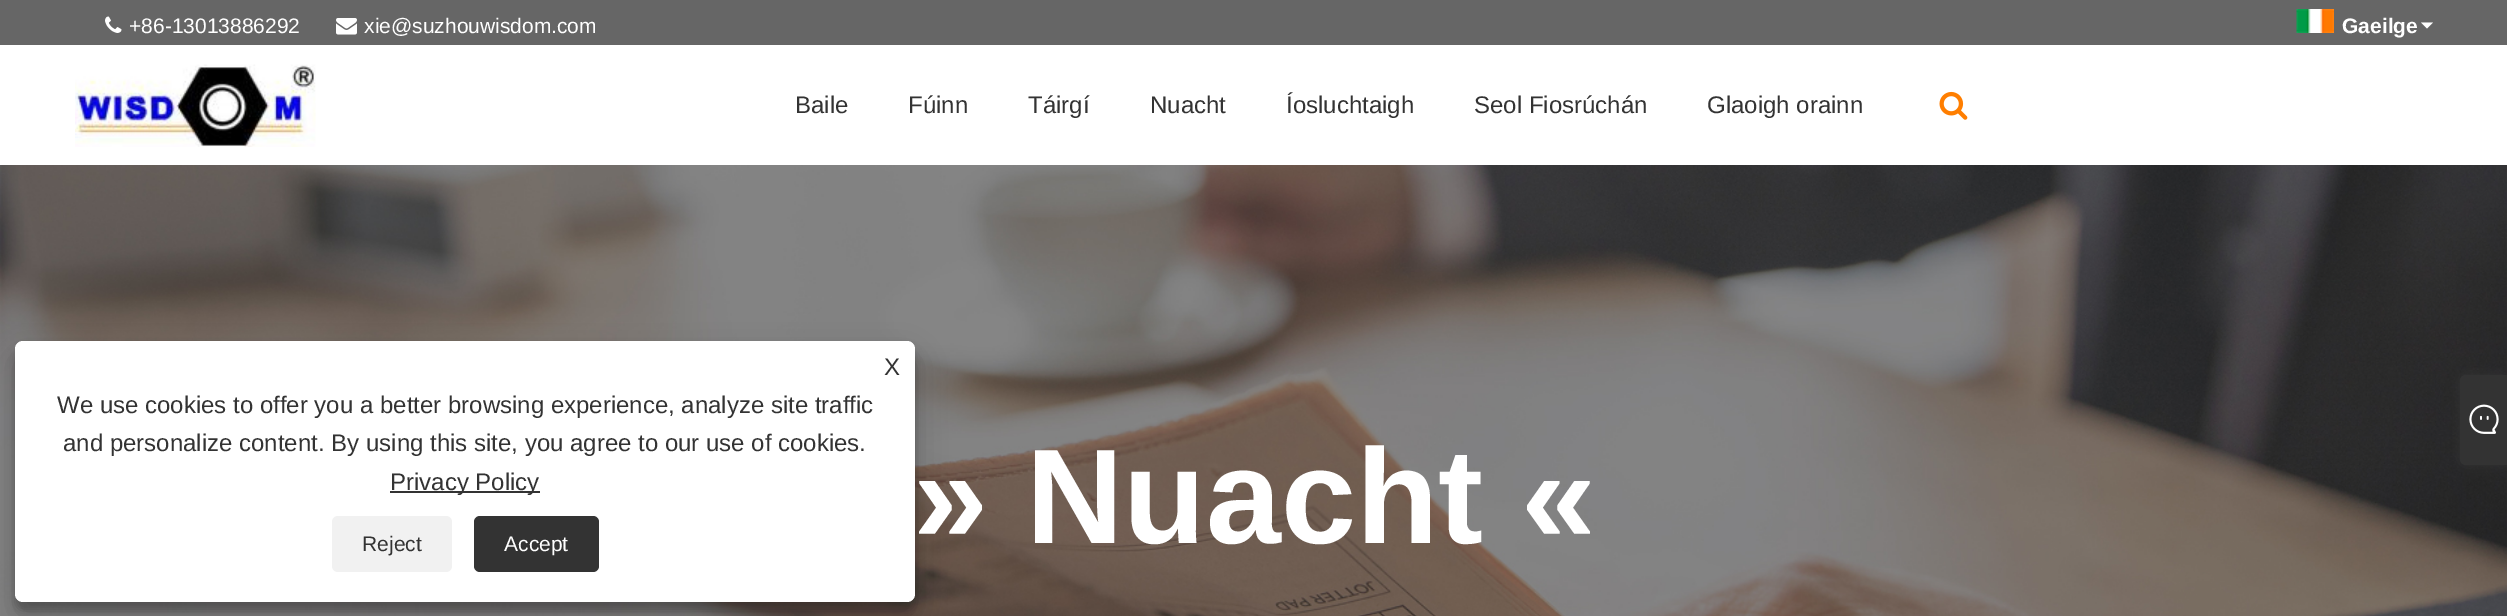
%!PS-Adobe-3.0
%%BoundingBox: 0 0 2507 616
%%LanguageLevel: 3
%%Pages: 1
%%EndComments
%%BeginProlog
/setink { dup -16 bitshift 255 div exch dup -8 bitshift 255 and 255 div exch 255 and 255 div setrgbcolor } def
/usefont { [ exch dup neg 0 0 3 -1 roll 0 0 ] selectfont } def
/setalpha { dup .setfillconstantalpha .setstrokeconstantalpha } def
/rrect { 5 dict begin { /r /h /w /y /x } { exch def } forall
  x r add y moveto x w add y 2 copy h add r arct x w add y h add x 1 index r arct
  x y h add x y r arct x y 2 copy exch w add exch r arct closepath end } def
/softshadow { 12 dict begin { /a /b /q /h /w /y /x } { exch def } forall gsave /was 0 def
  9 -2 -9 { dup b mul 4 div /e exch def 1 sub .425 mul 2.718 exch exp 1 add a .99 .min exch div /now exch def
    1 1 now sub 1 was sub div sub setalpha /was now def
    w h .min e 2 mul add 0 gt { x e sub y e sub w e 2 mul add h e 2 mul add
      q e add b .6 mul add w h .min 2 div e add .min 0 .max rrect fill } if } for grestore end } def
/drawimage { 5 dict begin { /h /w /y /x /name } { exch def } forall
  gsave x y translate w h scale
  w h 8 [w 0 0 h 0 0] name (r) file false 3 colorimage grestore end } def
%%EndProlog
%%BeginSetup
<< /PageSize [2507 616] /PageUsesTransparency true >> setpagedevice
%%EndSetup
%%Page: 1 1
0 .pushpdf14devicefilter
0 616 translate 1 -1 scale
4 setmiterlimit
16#FFFFFF setink
0 0 2507 616 rectfill
16#666666 setink
0 0 2507 45 rectfill
(img1.raw) 105 16 17 17 drawimage
/LiberationSans-Regular 21 usefont
16#FFFFFF setink
129 33 moveto (+86-13013886292) show
(img2.raw) 336 18 21 17 drawimage
364 33 moveto (xie@suzhouwisdom.com) show
(img3.raw) 2296 9 38 24 drawimage
/LiberationSans-Bold 21 usefont
2342 33 moveto (Gaeilge) show
2421 22.5 moveto 2433 22.5 lineto 2427 28.5 lineto closepath fill
(img4.raw) 75 64 241 83 drawimage
/LiberationSans-Regular 24 usefont
16#333333 setink
[
    [(Baile) 795 113]
    [(Fúinn) 908 113]
    [(Táirgí) 1028 113]
    [(Nuacht) 1150 113]
    [(Íosluchtaigh) 1286 113]
    [(Seol Fiosrúchán) 1474 113]
    [(Glaoigh orainn) 1707 113]
] { aload pop moveto show } forall
(img5.raw) 1939 91 29 29 drawimage
(img6.raw) 0 165 2507 451 drawimage
16#000000 setink
15 350 900 261 8 4.5 0.23 softshadow
15 356 900 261 8 15 0.19 softshadow
16#FFFFFF setink
15 341 900 261 8 rrect fill
16#333333 setink
[
    [(X) 884 375]
    [(We use cookies to offer you a better browsing experience, analyze site traffic) 57 413]
    [(and personalize content. By using this site, you agree to our use of cookies.) 63 451]
] { aload pop moveto show } forall
390 491 150 2 rectfill
390 490 moveto (Privacy Policy) show
16#F1F1F1 setink
332 516 120 56 6 rrect fill
/LiberationSans-Regular 21 usefont
16#333333 setink
362 551 moveto (Reject) show
474 516 125 56 6 rrect fill
16#FFFFFF setink
504 551 moveto (Accept) show
/LiberationSans-Bold 135 usefont
913 543 moveto (» Nuacht «) show
16#333333 setink
2460 375 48 90 6 6 1 softshadow
2466 375 moveto 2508 375 lineto 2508 465 lineto 2466 465 lineto 2462.5 465 2460 462.5 2460 459 curveto 2460 381 lineto 2460 377.5 2462.5 375 2466 375 curveto closepath fill
(img7.raw) 2469 404 30 30 drawimage
.poppdf14devicefilter showpage
%%EOF
